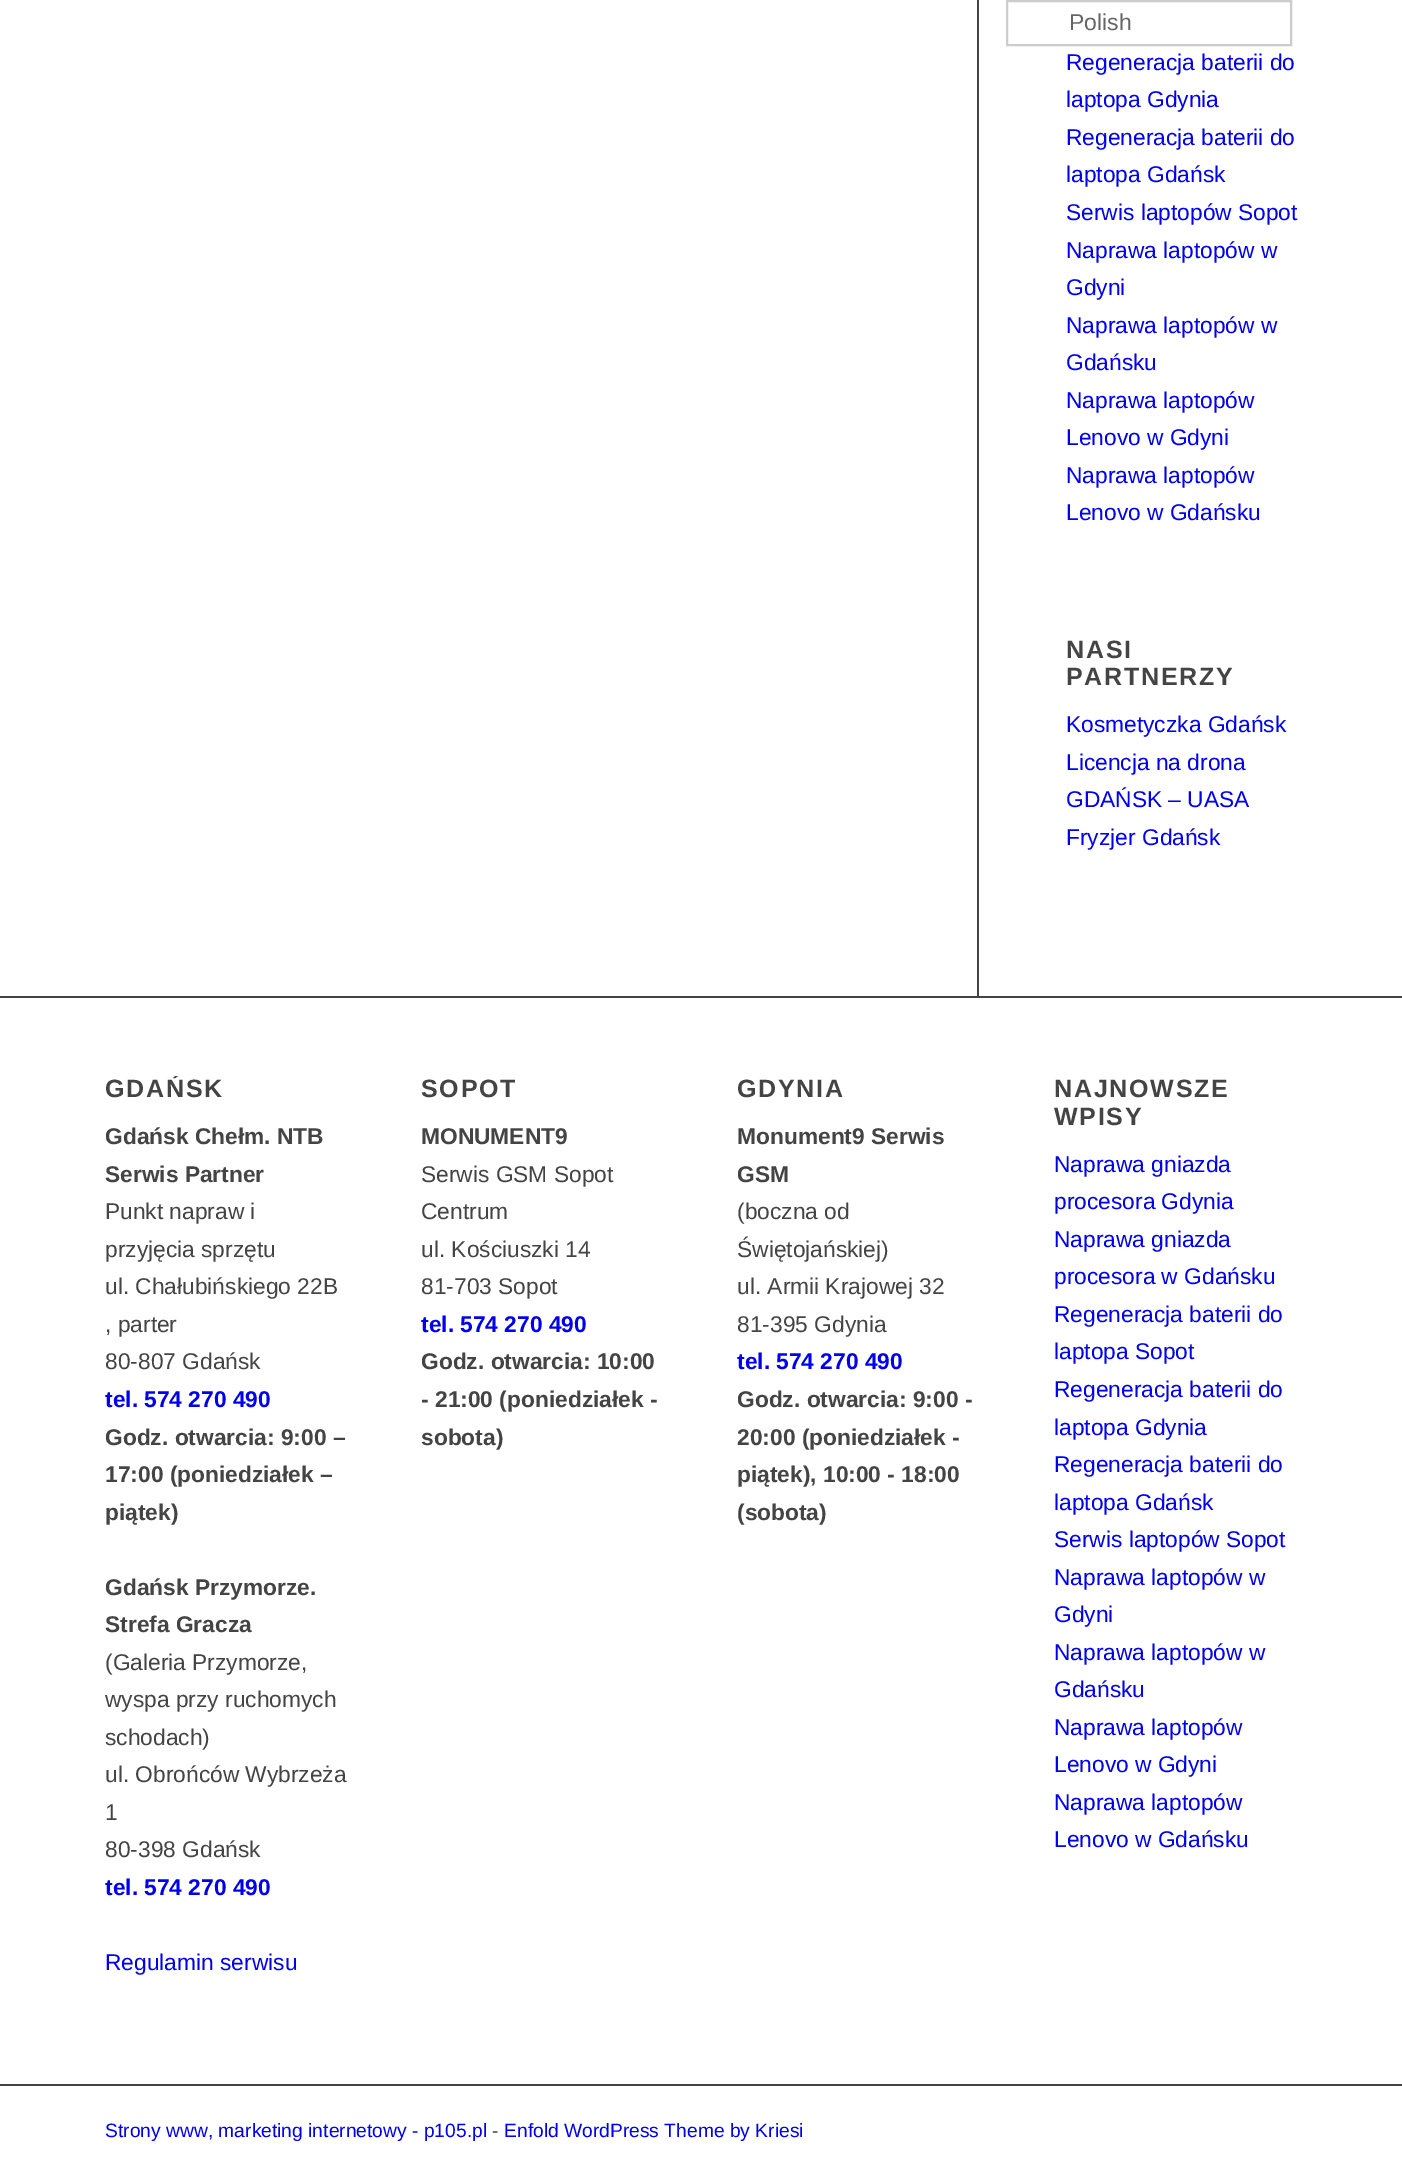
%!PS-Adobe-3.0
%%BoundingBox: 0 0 1402 2158
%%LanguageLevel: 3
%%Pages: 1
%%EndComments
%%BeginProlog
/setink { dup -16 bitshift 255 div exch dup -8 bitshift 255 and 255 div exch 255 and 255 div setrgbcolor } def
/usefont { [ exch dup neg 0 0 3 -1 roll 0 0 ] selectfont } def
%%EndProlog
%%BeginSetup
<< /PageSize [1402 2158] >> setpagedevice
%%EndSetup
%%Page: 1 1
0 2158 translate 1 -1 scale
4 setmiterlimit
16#FFFFFF setink
0 0 1402 2158 rectfill
16#CCCCCC setink
2 setlinewidth
1007 1 284 44 rectstroke
/LiberationSans-Regular 23 usefont
16#666666 setink
1069 30 moveto (Polish) show
16#444444 setink
977 0 2 996 rectfill
/LiberationSans-Regular 22.75 usefont
16#0000EE setink
[
    [(Regeneracja baterii do) 1066 70]
    [(laptopa Gdynia) 1066 107]
    [(Regeneracja baterii do) 1066 145]
    [(laptopa Gdańsk) 1066 182]
    [(Serwis laptopów Sopot) 1066 220]
    [(Naprawa laptopów w) 1066 258]
    [(Gdyni) 1066 295]
    [(Naprawa laptopów w) 1066 333]
    [(Gdańsku) 1066 370]
    [(Naprawa laptopów) 1066 408]
    [(Lenovo w Gdyni) 1066 445]
    [(Naprawa laptopów) 1066 483]
    [(Lenovo w Gdańsku) 1066 520]
] { aload pop moveto show } forall
/LiberationSans-Bold 25 usefont
16#444444 setink
1066 658 moveto 1.75 0 (NASI) ashow
1066 685 moveto 1.75 0 (PARTNERZY) ashow
/LiberationSans-Regular 22.75 usefont
16#0000EE setink
[
    [(Kosmetyczka Gdańsk) 1066 732]
    [(Licencja na drona) 1066 770]
    [(GDAŃSK – UASA) 1066 807]
    [(Fryzjer Gdańsk) 1066 845]
] { aload pop moveto show } forall
16#444444 setink
0 996 1402 2 rectfill
gsave
105 1076 245 905 rectclip
/LiberationSans-Bold 25 usefont
105 1097 moveto 1.75 0 (GDAŃSK) ashow
grestore
/LiberationSans-Bold 22.75 usefont
105 1144 moveto (Gdańsk Chełm. NTB) show
105 1182 moveto (Serwis Partner) show
/LiberationSans-Regular 22.75 usefont
[
    [(Punkt napraw i) 105 1219]
    [(przyjęcia sprzętu) 105 1257]
    [(ul. Chałubińskiego 22B) 105 1294]
    [(, parter) 105 1332]
    [(80-807 Gdańsk) 105 1369]
] { aload pop moveto show } forall
/LiberationSans-Bold 22.75 usefont
16#0000EE setink
105 1407 moveto (tel. 574 270 490) show
16#444444 setink
[
    [(Godz. otwarcia: 9:00 –) 105 1445]
    [(17:00 \(poniedziałek –) 105 1482]
    [(piątek\)) 105 1520]
    [(Gdańsk Przymorze.) 105 1595]
    [(Strefa Gracza) 105 1632]
] { aload pop moveto show } forall
/LiberationSans-Regular 22.75 usefont
[
    [(\(Galeria Przymorze,) 105 1670]
    [(wyspa przy ruchomych) 105 1707]
    [(schodach\)) 105 1745]
    [(ul. Obrońców Wybrzeża) 105 1782]
    [(1) 105 1820]
    [(80-398 Gdańsk) 105 1857]
] { aload pop moveto show } forall
/LiberationSans-Bold 22.75 usefont
16#0000EE setink
105 1895 moveto (tel. 574 270 490) show
/LiberationSans-Regular 22.75 usefont
105 1970 moveto (Regulamin serwisu) show
/LiberationSans-Bold 25 usefont
16#444444 setink
421 1097 moveto 1.75 0 (SOPOT) ashow
/LiberationSans-Bold 22.75 usefont
421 1144 moveto (MONUMENT9) show
/LiberationSans-Regular 22.75 usefont
[
    [(Serwis GSM Sopot) 421 1182]
    [(Centrum) 421 1219]
    [(ul. Kościuszki 14) 421 1257]
    [(81-703 Sopot) 421 1294]
] { aload pop moveto show } forall
/LiberationSans-Bold 22.75 usefont
16#0000EE setink
421 1332 moveto (tel. 574 270 490) show
16#444444 setink
[
    [(Godz. otwarcia: 10:00) 421 1369]
    [(- 21:00 \(poniedziałek -) 421 1407]
    [(sobota\)) 421 1445]
] { aload pop moveto show } forall
/LiberationSans-Bold 25 usefont
737 1097 moveto 1.75 0 (GDYNIA) ashow
/LiberationSans-Bold 22.75 usefont
737 1144 moveto (Monument9 Serwis) show
737 1182 moveto (GSM) show
/LiberationSans-Regular 22.75 usefont
[
    [(\(boczna od) 737 1219]
    [(Świętojańskiej\)) 737 1257]
    [(ul. Armii Krajowej 32) 737 1294]
    [(81-395 Gdynia) 737 1332]
] { aload pop moveto show } forall
/LiberationSans-Bold 22.75 usefont
16#0000EE setink
737 1369 moveto (tel. 574 270 490) show
16#444444 setink
[
    [(Godz. otwarcia: 9:00 -) 737 1407]
    [(20:00 \(poniedziałek -) 737 1445]
    [(piątek\), 10:00 - 18:00) 737 1482]
    [(\(sobota\)) 737 1520]
] { aload pop moveto show } forall
/LiberationSans-Bold 25 usefont
1054 1097 moveto 1.75 0 (NAJNOWSZE) ashow
1054 1125 moveto 1.75 0 (WPISY) ashow
/LiberationSans-Regular 22.75 usefont
16#0000EE setink
[
    [(Naprawa gniazda) 1054 1172]
    [(procesora Gdynia) 1054 1209]
    [(Naprawa gniazda) 1054 1247]
    [(procesora w Gdańsku) 1054 1284]
    [(Regeneracja baterii do) 1054 1322]
    [(laptopa Sopot) 1054 1359]
    [(Regeneracja baterii do) 1054 1397]
    [(laptopa Gdynia) 1054 1435]
    [(Regeneracja baterii do) 1054 1472]
    [(laptopa Gdańsk) 1054 1510]
    [(Serwis laptopów Sopot) 1054 1547]
    [(Naprawa laptopów w) 1054 1585]
    [(Gdyni) 1054 1622]
    [(Naprawa laptopów w) 1054 1660]
    [(Gdańsku) 1054 1697]
    [(Naprawa laptopów) 1054 1735]
    [(Lenovo w Gdyni) 1054 1772]
    [(Naprawa laptopów) 1054 1810]
    [(Lenovo w Gdańsku) 1054 1847]
] { aload pop moveto show } forall
16#444444 setink
0 2084 1402 2 rectfill
/LiberationSans-Regular 19.25 usefont
16#0000EE setink
105 2137 moveto (Strony www, marketing internetowy - p105.pl) show
16#444444 setink
492 2137 moveto (-) show
16#0000EE setink
504 2137 moveto (Enfold WordPress Theme by Kriesi) show
showpage
%%EOF
